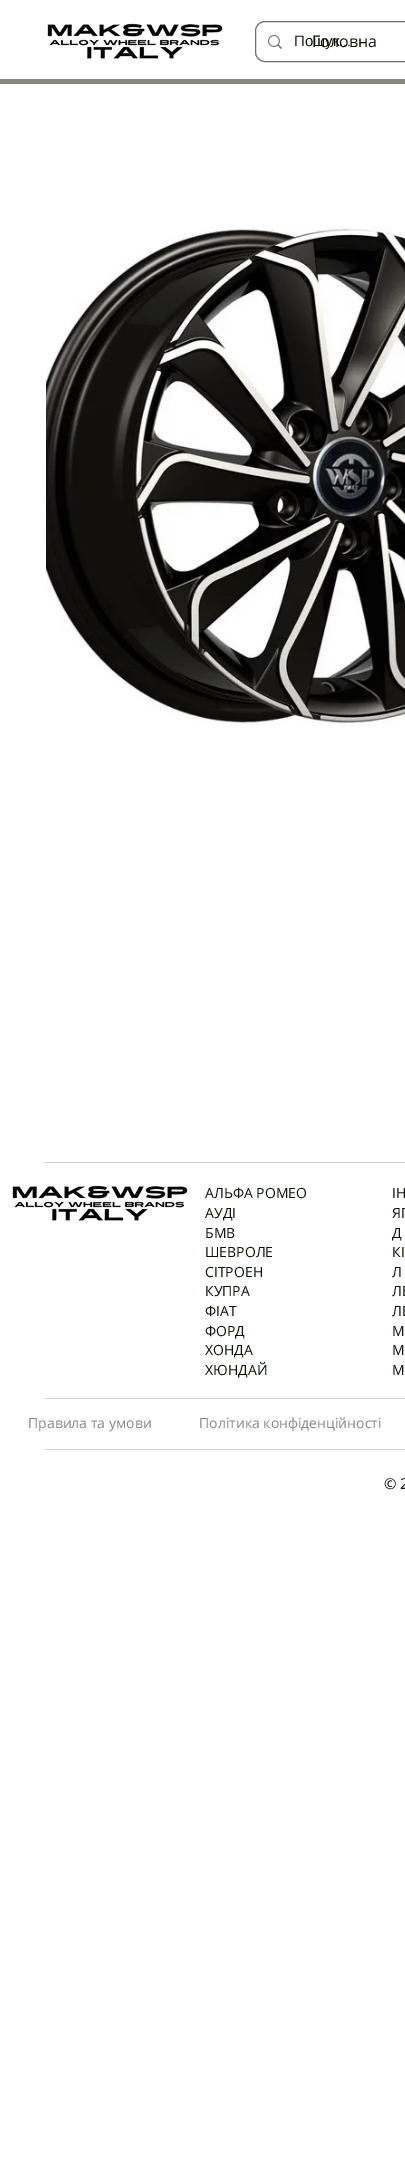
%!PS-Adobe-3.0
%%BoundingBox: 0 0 405 2180
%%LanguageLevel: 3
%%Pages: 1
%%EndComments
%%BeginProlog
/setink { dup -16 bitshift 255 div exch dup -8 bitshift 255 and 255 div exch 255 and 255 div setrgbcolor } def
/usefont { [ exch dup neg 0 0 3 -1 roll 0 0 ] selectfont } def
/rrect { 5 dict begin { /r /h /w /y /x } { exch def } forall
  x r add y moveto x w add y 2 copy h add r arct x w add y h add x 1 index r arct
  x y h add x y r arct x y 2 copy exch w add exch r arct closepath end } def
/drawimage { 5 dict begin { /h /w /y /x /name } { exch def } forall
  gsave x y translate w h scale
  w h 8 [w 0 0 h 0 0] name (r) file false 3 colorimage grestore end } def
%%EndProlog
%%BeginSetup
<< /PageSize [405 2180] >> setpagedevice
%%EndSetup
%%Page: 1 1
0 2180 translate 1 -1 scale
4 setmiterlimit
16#FFFFFF setink
0 0 405 2180 rectfill
(img1.raw) 47 23 176 36 drawimage
16#6B7269 setink
255.5 21.5 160 40 9.5 rrect stroke
(img2.raw) 268 35 14 14 drawimage
/LiberationSans-Regular 15 usefont
16#091405 setink
294 46 moveto (Пошук) show
/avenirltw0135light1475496-Light 15 usefont
339 46 moveto (...) show
/OpenSans-Regular 16 usefont
312 47 moveto (Головна) show
16#848A82 setink
0 79 405 5 rectfill
(img3.raw) 46 226 359 500 drawimage
16#D1D3D1 setink
45 1162 360 1 rectfill
(img1.raw) 12 1185 176 36 drawimage
/OpenSans-Regular 14 usefont
16#091405 setink
[
    [(АЛЬФА РОМЕО) 205 1198]
    [(АУДІ) 205 1218]
    [(БМВ) 205 1238]
    [(ШЕВРОЛЕ) 205 1257]
    [(СІТРОЕН) 205 1277]
    [(КУПРА) 205 1296]
    [(ФІАТ) 205 1316]
    [(ФОРД) 205 1336]
    [(ХОНДА) 205 1355]
    [(ХЮНДАЙ) 205 1375]
    [(ІН) 392 1198]
    [(ЯГ) 392 1218]
    [(Д) 392 1238]
    [(КІ) 392 1257]
    [(Л) 392 1277]
    [(ЛЕ) 392 1296]
    [(ЛЕ) 392 1316]
    [(М) 392 1336]
    [(М) 392 1355]
    [(М) 392 1375]
] { aload pop moveto show } forall
16#D1D3D1 setink
45 1398 360 1 rectfill
16#848A82 setink
28 1428 moveto (Правила та умови) show
199 1428 moveto (Політика конфіденційності) show
16#D1D3D1 setink
45 1449 360 1 rectfill
/OpenSans-Regular 15 usefont
16#091405 setink
384 1489 moveto (© 2) show
showpage
%%EOF
